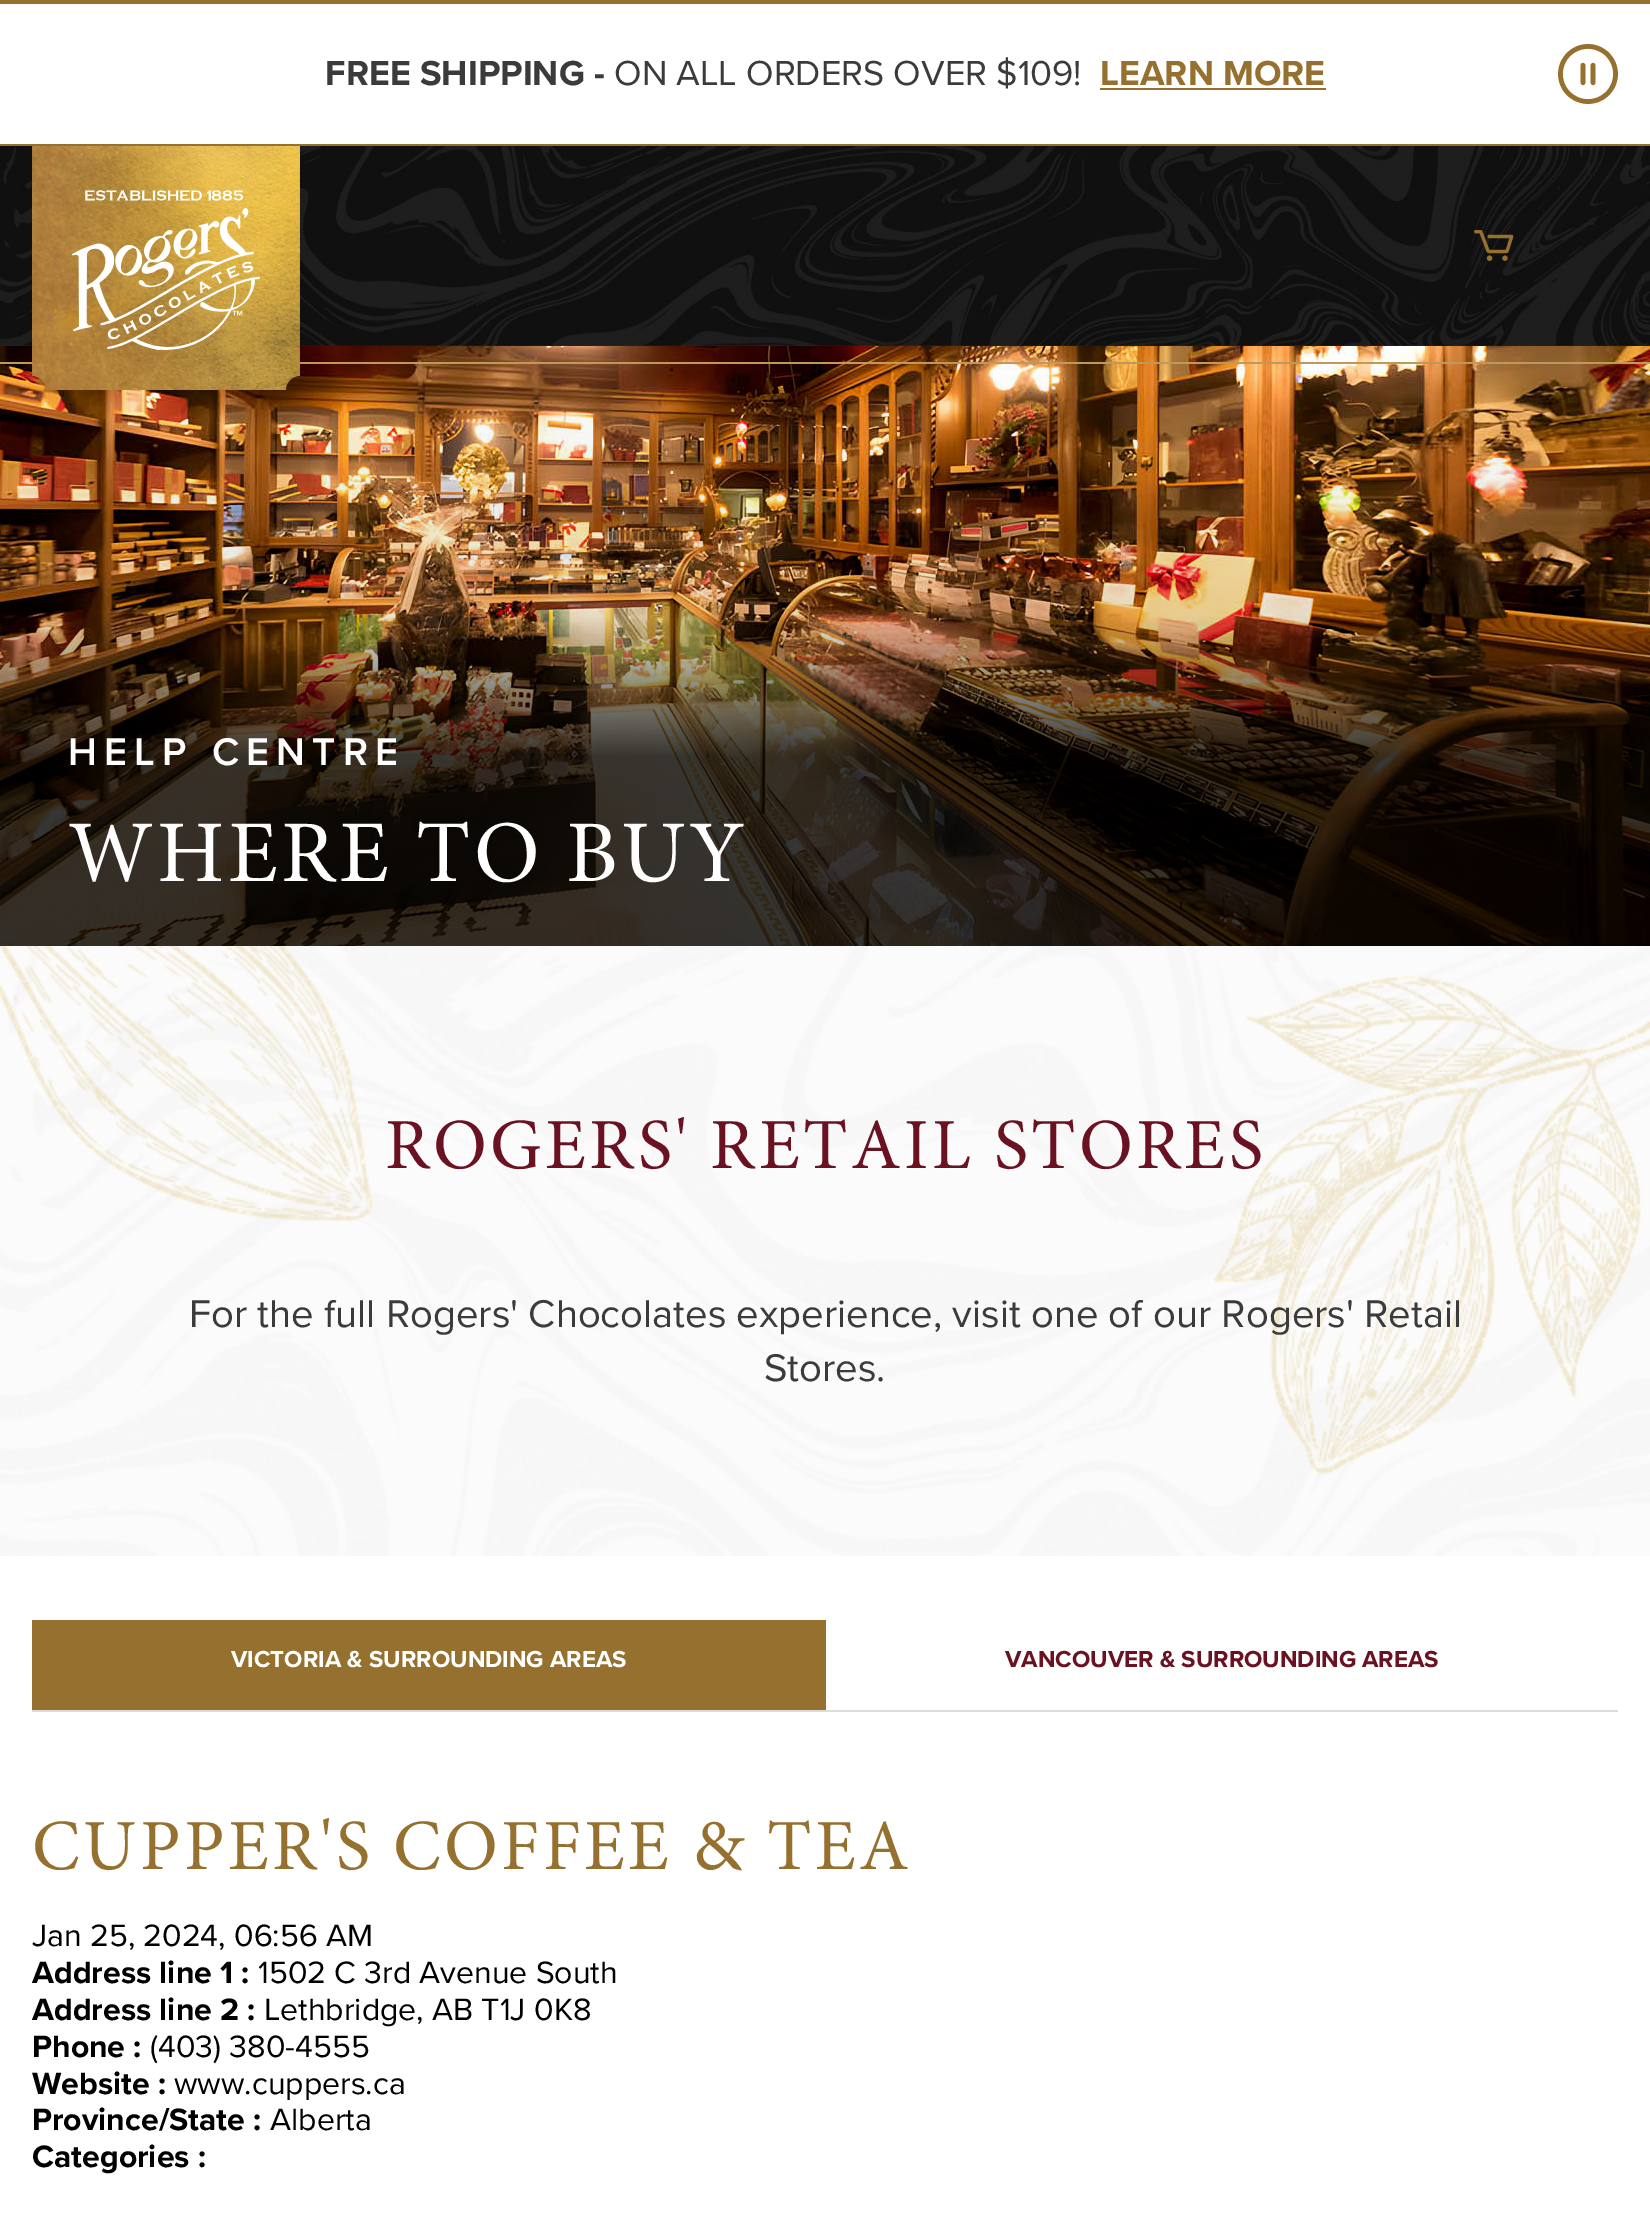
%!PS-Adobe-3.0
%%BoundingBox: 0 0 1650 2222
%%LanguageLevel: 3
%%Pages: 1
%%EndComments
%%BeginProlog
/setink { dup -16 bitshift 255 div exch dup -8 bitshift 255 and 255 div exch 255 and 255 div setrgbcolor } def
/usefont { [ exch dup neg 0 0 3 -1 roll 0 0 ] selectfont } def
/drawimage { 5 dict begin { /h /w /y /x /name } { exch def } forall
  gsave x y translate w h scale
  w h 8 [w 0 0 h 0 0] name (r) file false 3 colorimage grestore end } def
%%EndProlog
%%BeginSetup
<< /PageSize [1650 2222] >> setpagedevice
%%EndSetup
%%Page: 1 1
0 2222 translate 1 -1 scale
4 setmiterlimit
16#FFFFFF setink
0 0 1650 2222 rectfill
16#96702E setink
0 0 1650 4 rectfill
0 144 1650 2 rectfill
/ProximaNova-Bold 36 usefont
16#3B3B3B setink
325 85 moveto (FREE SHIPPING -) show
/ProximaNova-Regular 36 usefont
614 85 moveto (ON ALL ORDERS OVER $109!) show
/ProximaNova-Bold 36 usefont
16#96702E setink
1100 85 moveto (LEARN MORE) show
1100 88 226 2 rectfill
(img1.raw) 1558 44 60 60 drawimage
(img2.raw) 0 146 1650 200 drawimage
(img6.raw) 0 346 1650 600 drawimage
16#BE9959 setink
0 362 1650 2 rectfill
(img3.raw) 32 146 268 244 drawimage
(img4.raw) 72 190 188 160 drawimage
(img5.raw) 1474 230 40 31 drawimage
/ProximaNova-SemiBold 40 usefont
16#FFFFFF setink
68 765 moveto 7.25 0 (HELP CENTRE) ashow
/Minion-Regular 88 usefont
68 881 moveto 3.4 0 (WHERE TO BUY) ashow
(img7.raw) 0 946 1650 610 drawimage
(img8.raw) 0 946 373 276 drawimage
(img9.raw) 1213 976 437 499 drawimage
/Minion-Regular 72 usefont
16#6A1222 setink
385 1168 moveto 3.4 0 (ROGERS' RETAIL STORES) ashow
/ProximaNova-Regular 40 usefont
16#3B3B3B setink
189 1327 moveto (For the full Rogers' Chocolates experience, visit one of our Rogers' Retail) show
764 1381 moveto (Stores.) show
16#DBDBDB setink
32 1710 1586 2 rectfill
16#96702E setink
32 1620 794 90 rectfill
/ProximaNova-Bold 24 usefont
16#FFFFFF setink
231 1667 moveto (VICTORIA & SURROUNDING AREAS) show
16#6A1222 setink
1005 1667 moveto (VANCOUVER & SURROUNDING AREAS) show
/Minion-Regular 72 usefont
16#96702E setink
32 1869 moveto 3.4 0 (CUPPER'S COFFEE & TEA) ashow
/ProximaNova-Regular 32 usefont
16#000000 setink
32 1946 moveto (Jan 25, 2024, 06:56 AM) show
/ProximaNova-Bold 32 usefont
32 1983 moveto (Address line 1 :) show
/ProximaNova-Regular 32 usefont
258 1983 moveto (1502 C 3rd Avenue South) show
/ProximaNova-Bold 32 usefont
32 2020 moveto (Address line 2 :) show
/ProximaNova-Regular 32 usefont
264 2020 moveto (Lethbridge, AB T1J 0K8) show
/ProximaNova-Bold 32 usefont
32 2057 moveto (Phone :) show
/ProximaNova-Regular 32 usefont
150 2057 moveto (\(403\) 380-4555) show
/ProximaNova-Bold 32 usefont
32 2094 moveto (Website :) show
/ProximaNova-Regular 32 usefont
174 2094 moveto (www.cuppers.ca) show
/ProximaNova-Bold 32 usefont
32 2130 moveto (Province/State :) show
/ProximaNova-Regular 32 usefont
270 2130 moveto (Alberta) show
/ProximaNova-Bold 32 usefont
32 2167 moveto (Categories :) show
showpage
%%EOF
